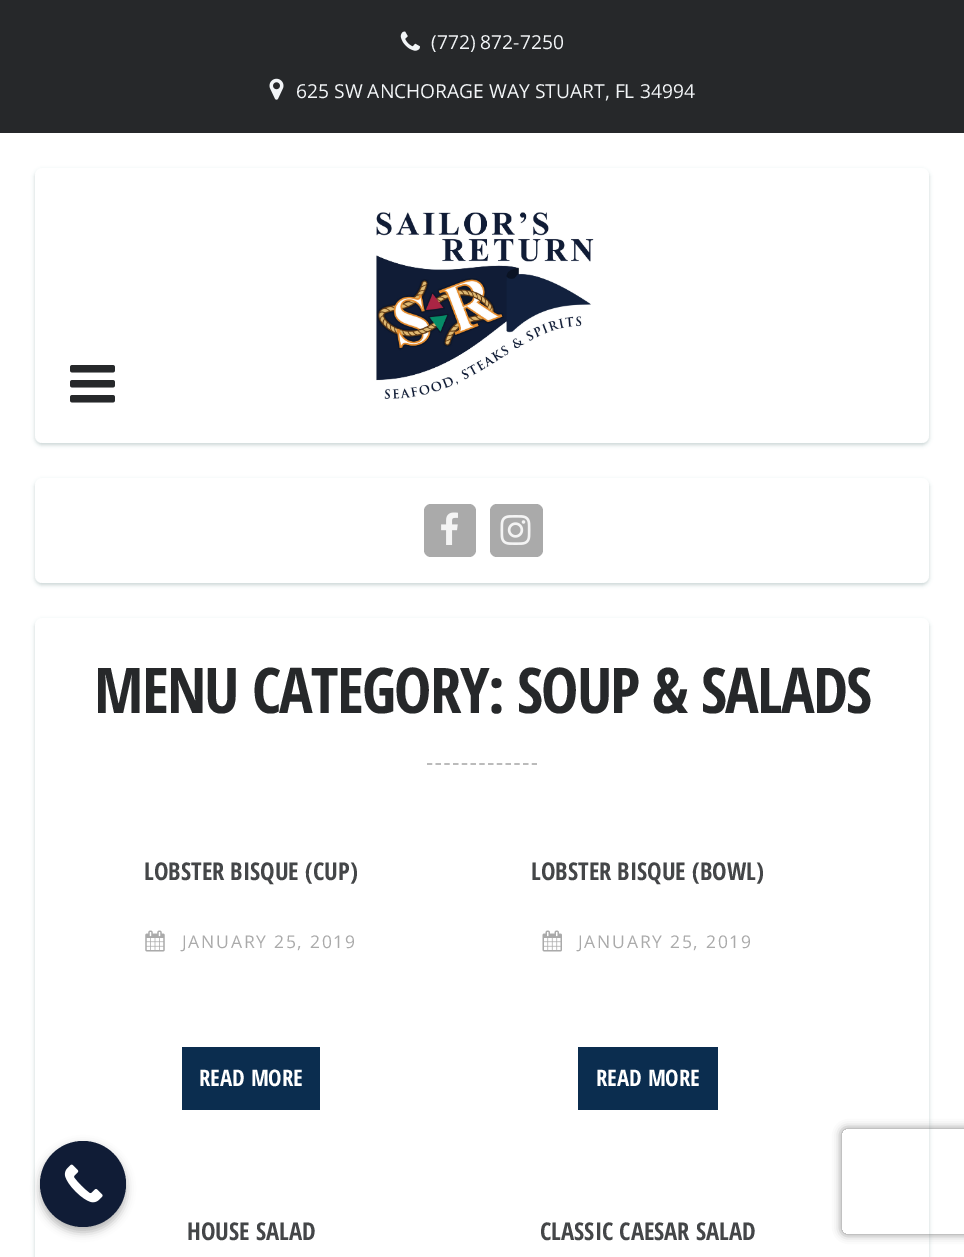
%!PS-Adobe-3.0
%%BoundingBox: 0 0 964 1257
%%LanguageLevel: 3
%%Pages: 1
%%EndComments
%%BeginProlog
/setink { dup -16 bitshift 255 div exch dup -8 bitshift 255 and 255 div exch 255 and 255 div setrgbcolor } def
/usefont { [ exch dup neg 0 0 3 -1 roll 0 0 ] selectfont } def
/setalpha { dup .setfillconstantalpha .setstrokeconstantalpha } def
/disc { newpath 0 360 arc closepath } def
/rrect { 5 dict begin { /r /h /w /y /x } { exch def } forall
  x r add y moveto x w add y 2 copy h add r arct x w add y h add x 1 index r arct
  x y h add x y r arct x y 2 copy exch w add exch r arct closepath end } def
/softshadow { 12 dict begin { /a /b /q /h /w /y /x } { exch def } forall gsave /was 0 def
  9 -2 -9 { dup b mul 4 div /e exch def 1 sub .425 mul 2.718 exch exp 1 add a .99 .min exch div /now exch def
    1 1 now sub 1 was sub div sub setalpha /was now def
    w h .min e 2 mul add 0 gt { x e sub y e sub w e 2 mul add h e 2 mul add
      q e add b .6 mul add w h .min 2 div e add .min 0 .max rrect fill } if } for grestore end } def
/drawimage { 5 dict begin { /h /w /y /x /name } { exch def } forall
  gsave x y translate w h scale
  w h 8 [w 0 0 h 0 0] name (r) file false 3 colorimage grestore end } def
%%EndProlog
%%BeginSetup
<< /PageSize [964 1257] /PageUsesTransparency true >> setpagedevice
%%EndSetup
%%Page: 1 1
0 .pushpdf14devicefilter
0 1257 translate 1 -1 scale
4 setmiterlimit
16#FFFFFF setink
0 0 964 1257 rectfill
16#26282A setink
0 0 964 133 rectfill
(img1.raw) 400 31 20 20 drawimage
/OpenSans-Regular 19.25 usefont
16#F2F5F7 setink
431 49 moveto (\(772\) 872-7250) show
(img2.raw) 269 78 15 22 drawimage
296 98 moveto (625 SW ANCHORAGE WAY STUART, FL 34994) show
gsave
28 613 moveto 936 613 lineto 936 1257 lineto 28 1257 lineto closepath 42 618 moveto 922 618 lineto 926 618 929 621 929 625 curveto 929 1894 lineto 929 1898 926 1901 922 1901 curveto 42 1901 lineto 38 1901 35 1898 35 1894 curveto 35 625 lineto 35 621 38 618 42 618 curveto closepath eoclip newpath
16#1E4646 setink
35 620 894 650 7 2 0.23 softshadow
grestore
0.9 setalpha
16#FFFFFF setink
35 618 894 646 7 rrect fill
1 setalpha
16#000000 setink
40 1145 86 87 43 4.5 0.3 softshadow
16#101C36 setink
83 1184 43 disc fill
(img3.raw) 64 1164 39 39 drawimage
gsave
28 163 moveto 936 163 lineto 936 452 lineto 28 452 lineto closepath 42 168 moveto 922 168 lineto 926 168 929 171 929 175 curveto 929 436 lineto 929 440 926 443 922 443 curveto 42 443 lineto 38 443 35 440 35 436 curveto 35 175 lineto 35 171 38 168 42 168 curveto closepath eoclip newpath
16#1E4646 setink
35 170 894 275 7 2 0.23 softshadow
grestore
0.9 setalpha
16#FFFFFF setink
35 168 894 275 7 rrect fill
1 setalpha
(img4.raw) 376 212 218 187 drawimage
(img5.raw) 70 365 45 38 drawimage
gsave
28 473 moveto 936 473 lineto 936 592 lineto 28 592 lineto closepath 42 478 moveto 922 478 lineto 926 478 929 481 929 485 curveto 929 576 lineto 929 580 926 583 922 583 curveto 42 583 lineto 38 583 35 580 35 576 curveto 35 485 lineto 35 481 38 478 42 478 curveto closepath eoclip newpath
16#1E4646 setink
35 480 894 105 7 2 0.23 softshadow
grestore
0.9 setalpha
35 478 894 105 7 rrect fill
1 setalpha
16#AAAAAA setink
424 504 52 53 7 rrect fill
(img6.raw) 441 512 17 33 drawimage
490 504 53 53 7 rrect fill
(img7.raw) 500 515 31 30 drawimage
/OpenSansCondensed-Bold 63 usefont
16#26282A setink
94 713 moveto -1.75 0 (MENU CATEGORY: SOUP & SALADS) ashow
16#BBBBBB setink
1.8 setlinewidth
[5.25 3.5] 0 setdash
427 764 moveto 537 764 lineto stroke
/OpenSansCondensed-Bold 24.5 usefont
16#444648 setink
144 880 moveto (LOBSTER BISQUE \(CUP\)) show
(img8.raw) 145 930 20 22 drawimage
/OpenSans-Regular 17.5 usefont
16#AAAAAA setink
182 948 moveto 1.75 0 (JANUARY 25, 2019) ashow
16#0B2D4F setink
182 1047 138 63 rectfill
/OpenSansCondensed-Bold 22.75 usefont
16#FFFFFF setink
199 1086 moveto (READ MORE) show
/OpenSansCondensed-Bold 24.5 usefont
16#444648 setink
531 880 moveto (LOBSTER BISQUE \(BOWL\)) show
(img9.raw) 542 930 20 22 drawimage
/OpenSans-Regular 17.5 usefont
16#AAAAAA setink
578 948 moveto 1.75 0 (JANUARY 25, 2019) ashow
16#0B2D4F setink
578 1047 140 63 rectfill
/OpenSansCondensed-Bold 22.75 usefont
16#FFFFFF setink
596 1086 moveto (READ MORE) show
/OpenSansCondensed-Bold 24.5 usefont
16#444648 setink
187 1240 moveto (HOUSE SALAD) show
540 1240 moveto (CLASSIC CAESAR SALAD) show
gsave
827 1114 moveto 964 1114 lineto 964 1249 lineto 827 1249 lineto closepath 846 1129 moveto 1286 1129 lineto 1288 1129 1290 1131 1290 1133 curveto 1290 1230 lineto 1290 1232 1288 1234 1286 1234 curveto 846 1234 lineto 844 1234 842 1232 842 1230 curveto 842 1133 lineto 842 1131 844 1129 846 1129 curveto closepath eoclip newpath
16#808080 setink
842 1129 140 105 4 4.5 1 softshadow
grestore
.poppdf14devicefilter showpage
%%EOF
